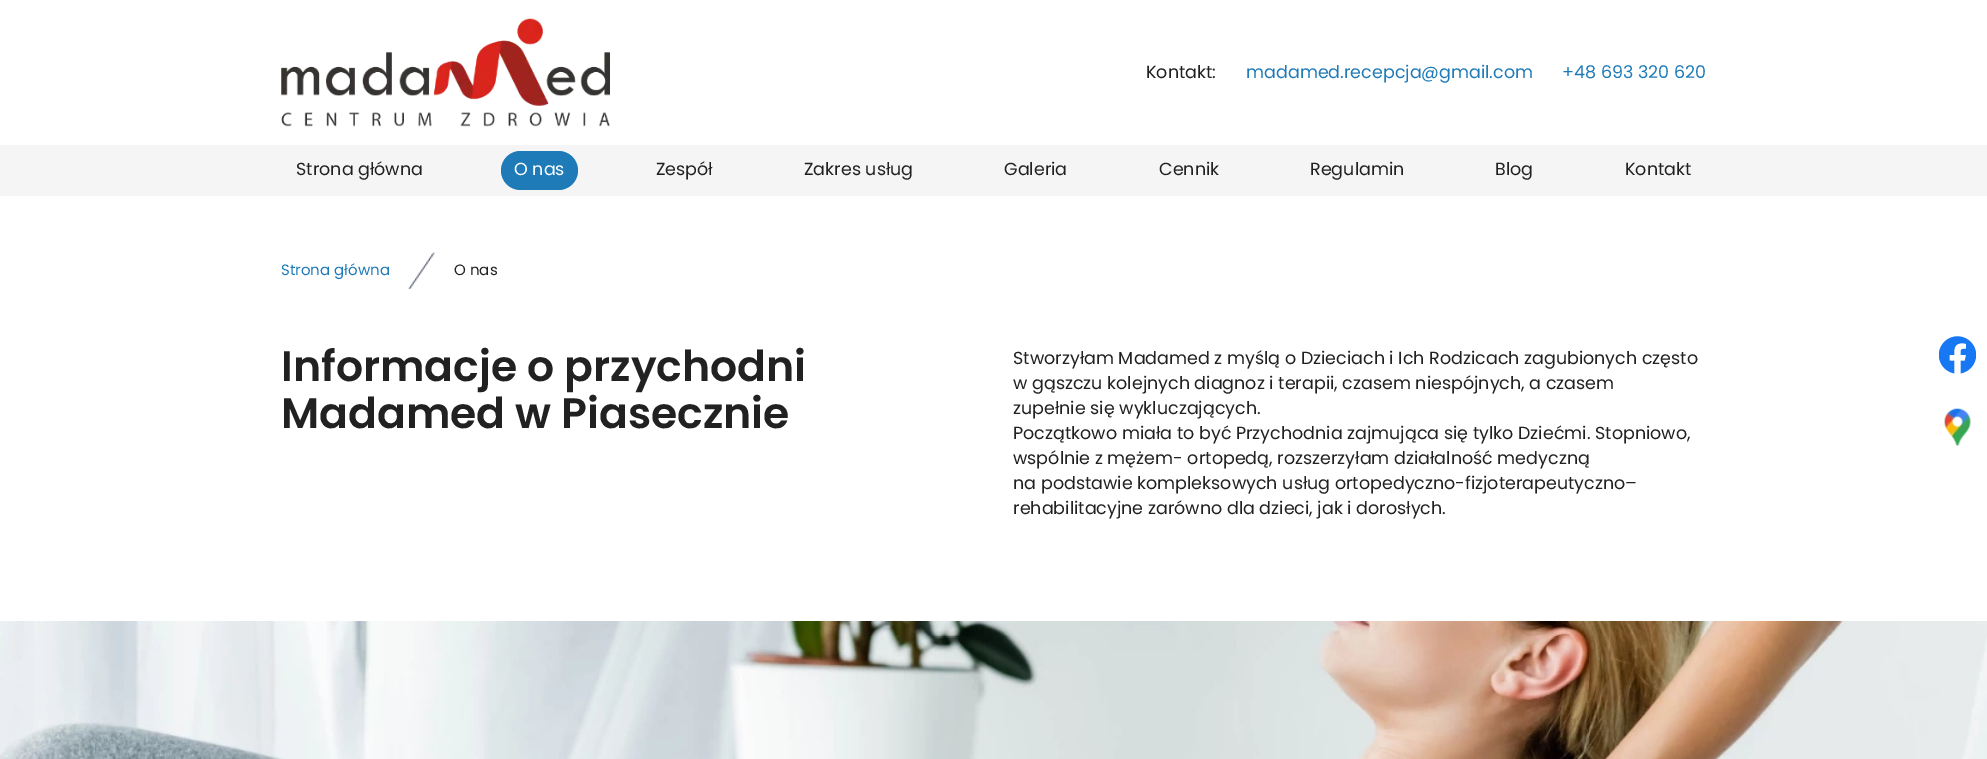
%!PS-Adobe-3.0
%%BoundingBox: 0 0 1987 759
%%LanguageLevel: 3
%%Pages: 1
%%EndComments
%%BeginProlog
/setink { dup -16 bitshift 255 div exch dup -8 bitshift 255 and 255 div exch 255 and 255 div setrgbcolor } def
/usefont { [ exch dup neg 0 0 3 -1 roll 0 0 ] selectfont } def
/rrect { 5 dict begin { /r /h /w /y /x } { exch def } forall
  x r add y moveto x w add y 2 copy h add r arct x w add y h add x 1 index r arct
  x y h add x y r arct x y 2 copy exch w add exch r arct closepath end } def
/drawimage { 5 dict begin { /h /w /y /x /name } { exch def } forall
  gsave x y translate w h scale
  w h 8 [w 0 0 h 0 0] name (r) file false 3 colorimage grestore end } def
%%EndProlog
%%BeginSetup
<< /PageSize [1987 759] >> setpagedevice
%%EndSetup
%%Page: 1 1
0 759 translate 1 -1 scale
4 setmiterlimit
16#FFFFFF setink
0 0 1987 759 rectfill
(img1.raw) 281 18 329 109 drawimage
/Poppins-Regular 17.5 usefont
16#212121 setink
1146 78 moveto (Kontakt:) show
16#1F7BB8 setink
1246 78 moveto (madamed.recepcja@gmail.com) show
1562 78 moveto (+48 693 320 620) show
16#F5F5F5 setink
0 145 1987 51 rectfill
16#212121 setink
296 175 moveto (Strona główna) show
16#1F7BB8 setink
501 151 77 39 19.5 rrect fill
16#FFFFFF setink
514 175 moveto (O nas) show
16#212121 setink
[
    [(Zespół) 656 175]
    [(Zakres usług) 804 175]
    [(Galeria) 1004 175]
    [(Cennik) 1159 175]
    [(Regulamin) 1310 175]
    [(Blog) 1495 175]
    [(Kontakt) 1625 175]
] { aload pop moveto show } forall
/Poppins-Regular 15 usefont
16#1F7BB8 setink
281 275 moveto (Strona główna) show
(img2.raw) 408 252 27 37 drawimage
16#212121 setink
454 275 moveto (O nas) show
/Poppins-SemiBold 42.5 usefont
281 381 moveto (Informacje o przychodni) show
281 428 moveto (Madamed w Piasecznie) show
/Poppins-Regular 17.5 usefont
[
    [(Stworzyłam Madamed z myślą o Dzieciach i Ich Rodzicach zagubionych często) 1013 364]
    [(w gąszczu kolejnych diagnoz i terapii, czasem niespójnych, a czasem) 1013 389]
    [(zupełnie się wykluczających.) 1013 414]
    [(Początkowo miała to być Przychodnia zajmująca się tylko Dziećmi. Stopniowo,) 1013 439]
    [(wspólnie z mężem- ortopedą, rozszerzyłam działalność medyczną) 1013 464]
    [(na podstawie kompleksowych usług ortopedyczno-fizjoterapeutyczno–) 1013 489]
    [(rehabilitacyjne zarówno dla dzieci, jak i dorosłych.) 1013 514]
] { aload pop moveto show } forall
(img3.raw) 0 621 1987 138 drawimage
(img4.raw) 1939 336 37 38 drawimage
(img5.raw) 1944 408 27 39 drawimage
showpage
%%EOF
